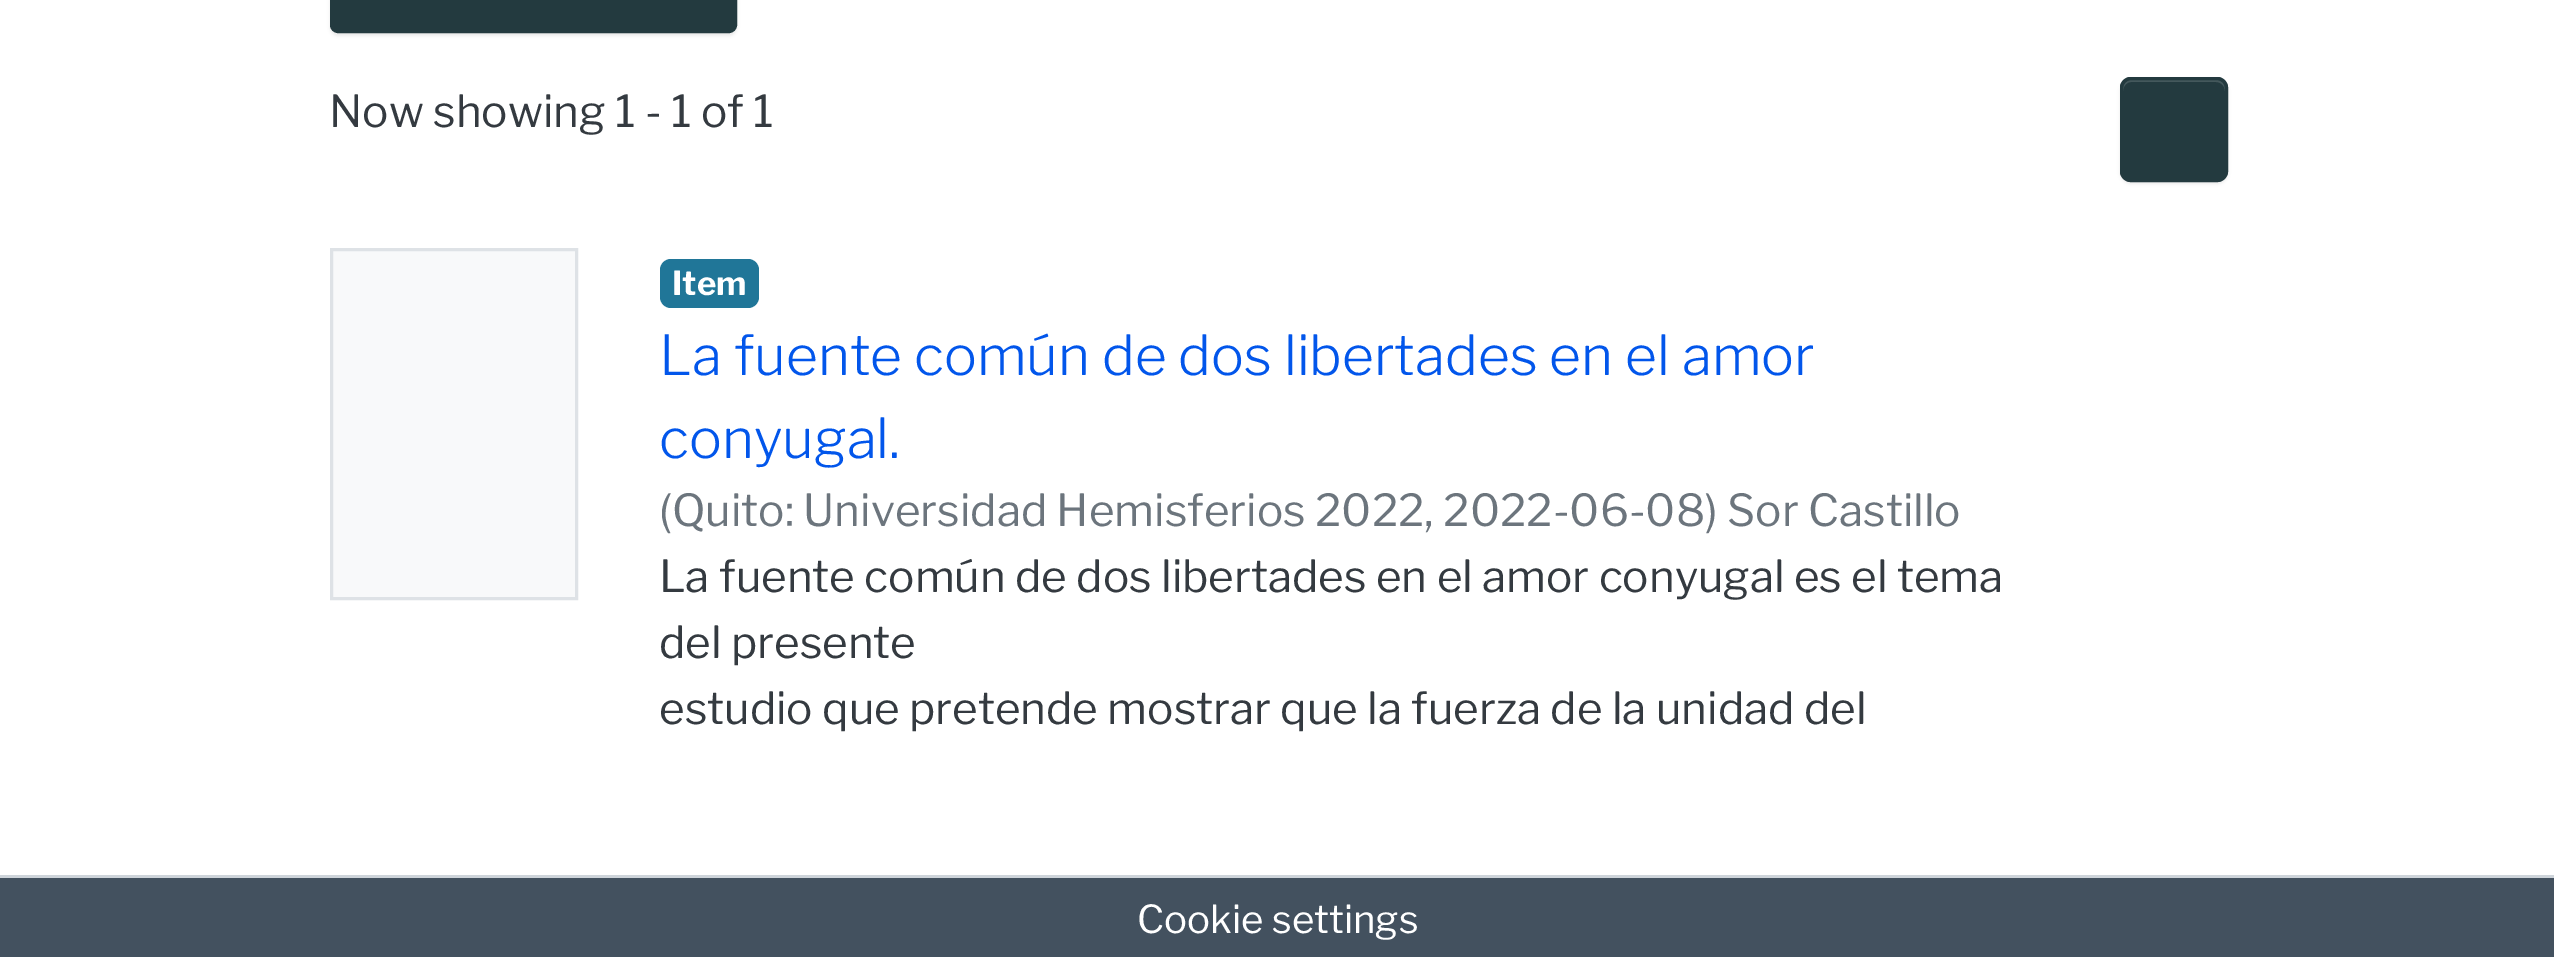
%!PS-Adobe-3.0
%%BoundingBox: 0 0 2554 957
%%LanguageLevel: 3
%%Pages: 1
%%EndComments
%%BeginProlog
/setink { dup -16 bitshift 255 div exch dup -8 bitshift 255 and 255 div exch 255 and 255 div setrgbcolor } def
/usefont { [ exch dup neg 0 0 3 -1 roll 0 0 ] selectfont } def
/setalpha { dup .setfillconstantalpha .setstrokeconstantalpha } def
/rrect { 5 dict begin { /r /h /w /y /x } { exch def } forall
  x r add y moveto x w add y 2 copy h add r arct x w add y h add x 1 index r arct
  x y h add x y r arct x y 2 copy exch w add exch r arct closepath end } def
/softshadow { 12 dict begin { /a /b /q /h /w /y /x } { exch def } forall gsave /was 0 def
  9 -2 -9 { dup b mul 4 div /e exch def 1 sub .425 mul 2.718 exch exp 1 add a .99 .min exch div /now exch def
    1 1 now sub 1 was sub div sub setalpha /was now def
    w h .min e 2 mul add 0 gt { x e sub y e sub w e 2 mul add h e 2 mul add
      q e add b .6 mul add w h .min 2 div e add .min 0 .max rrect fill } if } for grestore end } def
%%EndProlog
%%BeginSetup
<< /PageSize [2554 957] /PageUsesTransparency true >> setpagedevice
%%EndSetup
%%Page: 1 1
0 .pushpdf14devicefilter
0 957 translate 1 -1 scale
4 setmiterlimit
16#FFFFFF setink
0 0 2554 957 rectfill
16#000000 setink
330 -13 407 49 8 1.5 0.07 softshadow
16#233A3F setink
331.5 -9.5 404 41 6.5 rrect gsave fill grestore
3 setlinewidth
stroke
/LibreFranklin-Regular 44 usefont
16#343A40 setink
329 127 moveto (Now showing 1 - 1 of 1) show
16#000000 setink
2120 80 108 104 11 1.5 0.07 softshadow
16#233A3F setink
2120 77 108 105 11 rrect fill
16#44585C setink
2131 82 moveto 2216 82 lineto 2221 82 2225 86 2225 91 curveto 2225 77 2215 80 2203 80 curveto 2145 80 lineto 2133 80 2123 77 2123 91 curveto 2123 86 2127 82 2131 82 curveto closepath fill
16#233A3F setink
2121.5 78.5 105 102 9.5 rrect stroke
16#F8F9FA setink
331.5 249.5 moveto 576.5 249.5 lineto 576.5 598.5 lineto 331.5 598.5 lineto closepath gsave fill grestore
16#DEE2E6 setink
stroke
16#207698 setink
660 259 99 49 11 rrect fill
/LibreFranklin-Bold 33 usefont
16#FFFFFF setink
672 295 moveto (Item) show
/LibreFranklin-Light 55 usefont
16#0256EB setink
659 375 moveto (La fuente común de dos libertades en el amor) show
659 458 moveto (conyugal.) show
/LibreFranklin-Regular 44 usefont
16#6C757D setink
659 526 moveto (\(Quito: Universidad Hemisferios 2022, 2022-06-08\) Sor Castillo) show
16#343A40 setink
[
    [(La fuente común de dos libertades en el amor conyugal es el tema) 659 592]
    [(del presente) 659 658]
    [(estudio que pretende mostrar que la fuerza de la unidad del) 659 724]
] { aload pop moveto show } forall
16#43515F setink
0 878 2554 79 rectfill
16#CED4DA setink
0 875 2554 3 rectfill
/LibreFranklin-Regular 38.5 usefont
16#FFFFFF setink
1137 933 moveto (Cookie settings) show
.poppdf14devicefilter showpage
%%EOF
